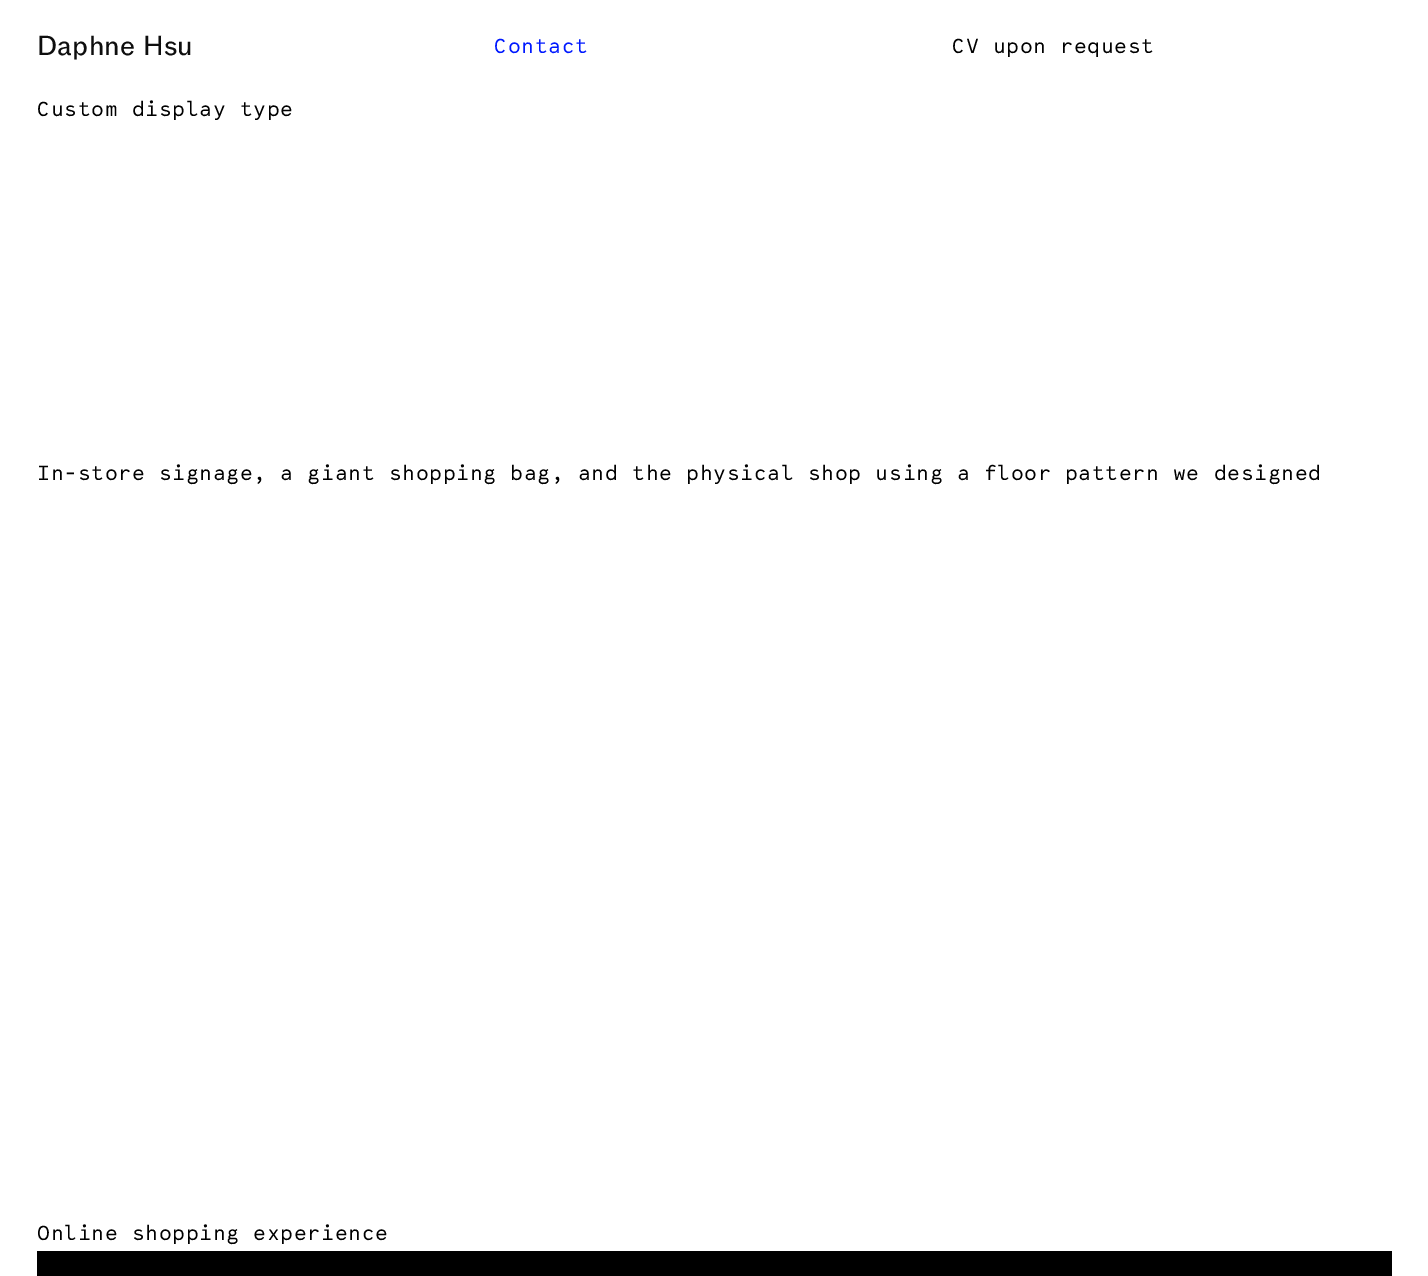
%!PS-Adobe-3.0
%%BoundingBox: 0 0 1428 1276
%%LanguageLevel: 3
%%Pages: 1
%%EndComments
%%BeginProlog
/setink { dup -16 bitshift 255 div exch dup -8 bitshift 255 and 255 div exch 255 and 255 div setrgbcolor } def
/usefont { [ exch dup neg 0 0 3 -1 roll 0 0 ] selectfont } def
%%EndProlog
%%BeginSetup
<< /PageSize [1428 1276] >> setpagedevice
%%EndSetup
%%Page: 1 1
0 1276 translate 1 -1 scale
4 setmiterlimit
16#FFFFFF setink
0 0 1428 1276 rectfill
/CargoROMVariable-Regular 27.5 usefont
16#0E0E0E setink
37 55 moveto 0.25 0 (Daphne Hsu) ashow
/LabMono-Regular 20.2 usefont
16#0019FF setink
494 53 moveto 0.6 0 (Contact) ashow
16#000000 setink
952 53 moveto 0.6 0 (CV upon request) ashow
37 116 moveto 0.6 0 (Custom display type) ashow
37 480 moveto 0.6 0 (In-store signage, a giant shopping bag, and the physical shop using a floor pattern we designed) ashow
37 1240 moveto 0.6 0 (Online shopping experience) ashow
37 1251 1355 25 rectfill
showpage
%%EOF
